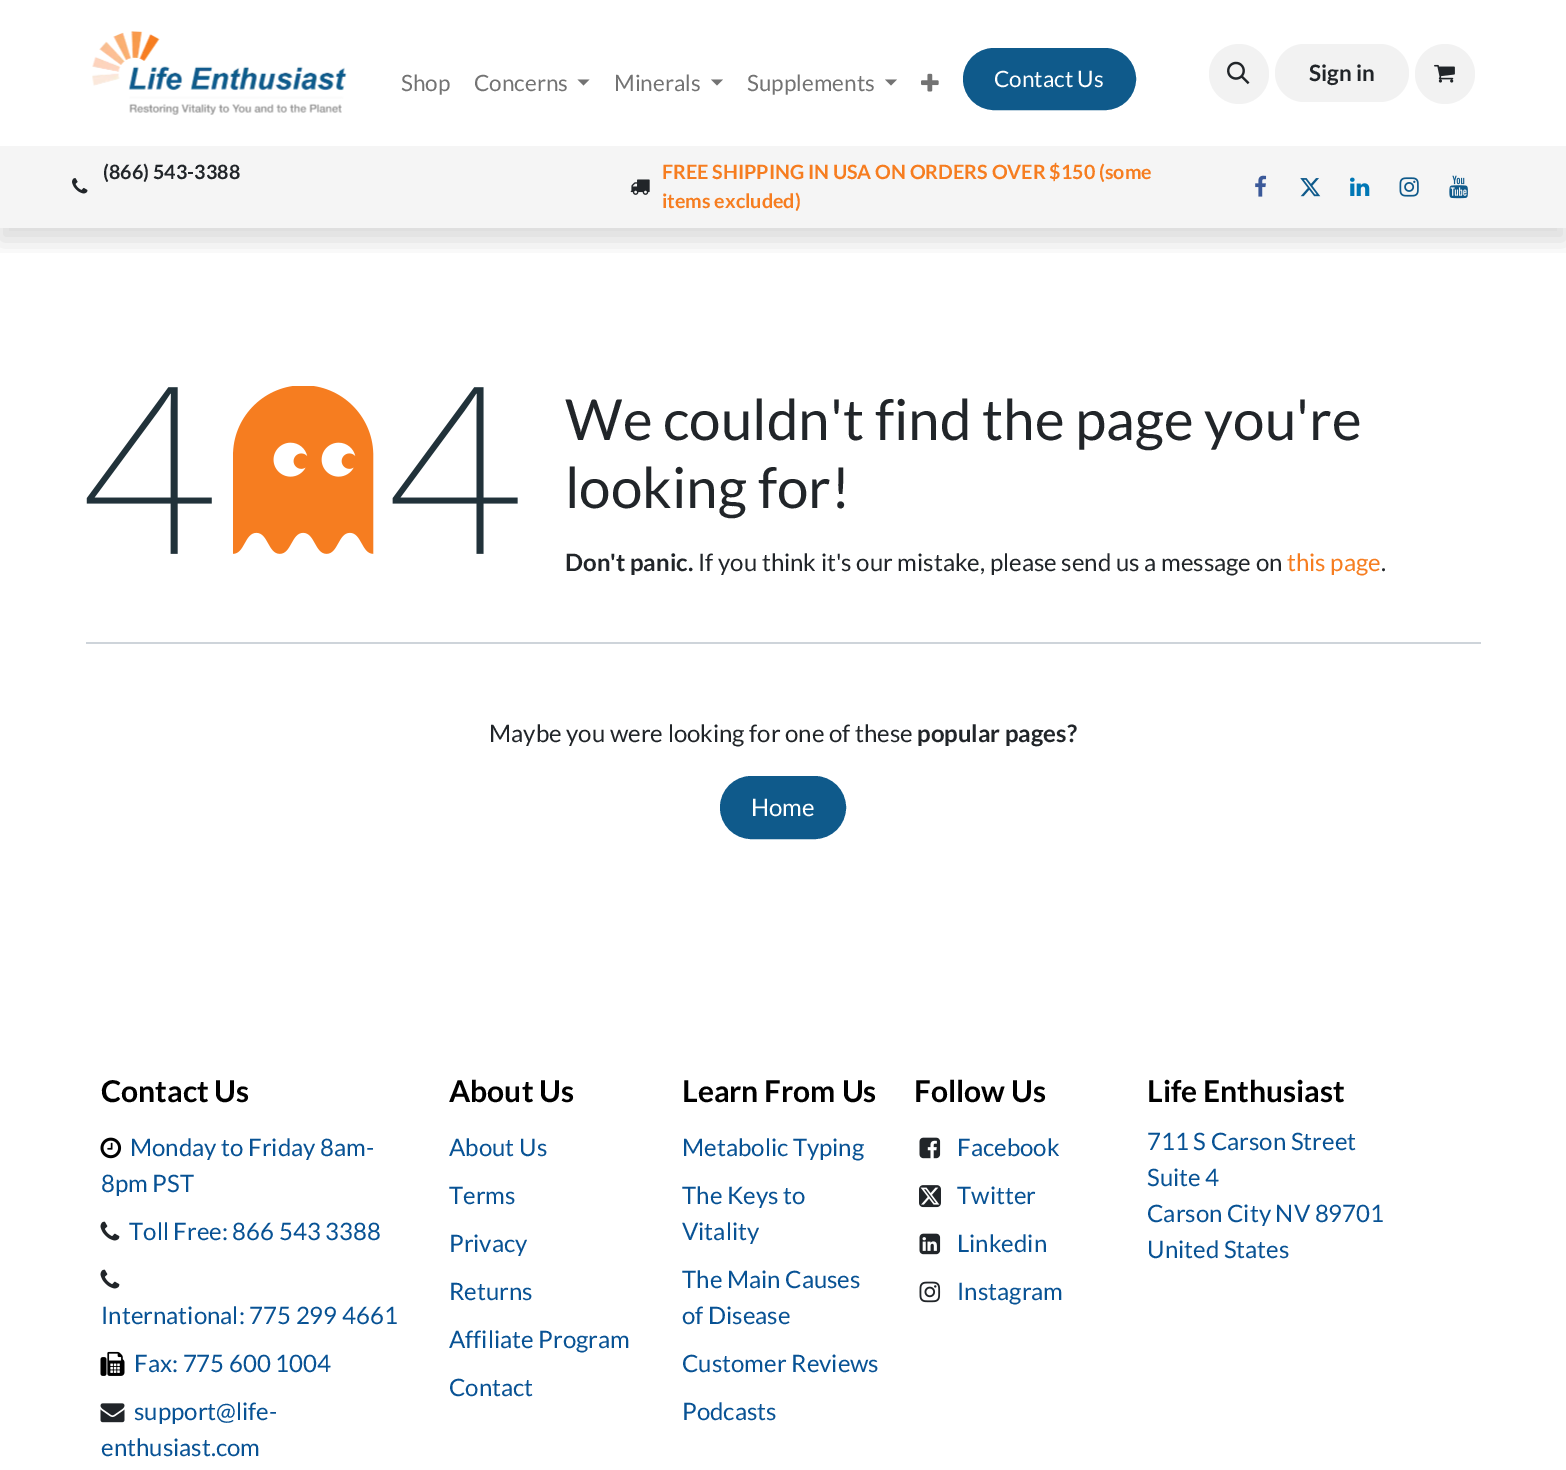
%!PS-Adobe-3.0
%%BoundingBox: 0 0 1566 1470
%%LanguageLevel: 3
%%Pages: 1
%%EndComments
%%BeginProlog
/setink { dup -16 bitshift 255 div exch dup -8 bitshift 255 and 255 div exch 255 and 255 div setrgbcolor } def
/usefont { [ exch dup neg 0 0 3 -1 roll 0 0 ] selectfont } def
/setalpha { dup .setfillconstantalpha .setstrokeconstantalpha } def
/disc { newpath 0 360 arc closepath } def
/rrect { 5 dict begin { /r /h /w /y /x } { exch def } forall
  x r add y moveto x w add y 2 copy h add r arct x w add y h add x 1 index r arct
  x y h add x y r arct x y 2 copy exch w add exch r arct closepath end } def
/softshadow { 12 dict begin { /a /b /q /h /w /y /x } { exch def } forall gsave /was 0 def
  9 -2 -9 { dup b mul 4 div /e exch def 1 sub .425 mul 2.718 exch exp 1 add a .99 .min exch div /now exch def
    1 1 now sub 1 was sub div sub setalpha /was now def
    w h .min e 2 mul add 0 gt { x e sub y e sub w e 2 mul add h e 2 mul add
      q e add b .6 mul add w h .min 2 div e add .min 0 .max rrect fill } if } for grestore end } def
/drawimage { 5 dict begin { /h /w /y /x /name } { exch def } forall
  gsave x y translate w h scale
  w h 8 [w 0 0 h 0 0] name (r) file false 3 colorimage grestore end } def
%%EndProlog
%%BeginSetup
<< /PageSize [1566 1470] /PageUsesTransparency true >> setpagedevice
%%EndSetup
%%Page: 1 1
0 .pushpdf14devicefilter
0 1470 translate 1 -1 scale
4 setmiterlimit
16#FFFFFF setink
0 0 1566 1470 rectfill
gsave
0 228 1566 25 rectclip
16#000000 setink
0 12 1566 228 0 12 0.15 softshadow
grestore
(img1.raw) 92 31 255 84 drawimage
/Lato-Regular 22.5 usefont
16#737373 setink
401 91 moveto (Shop) show
474 91 moveto (Concerns) show
577.5 79.5 moveto 589.5 79.5 lineto 583.5 85.5 lineto closepath fill
614 91 moveto (Minerals) show
711 79.5 moveto 723 79.5 lineto 717 85.5 lineto closepath fill
747 91 moveto (Supplements) show
885 79.5 moveto 897 79.5 lineto 891 85.5 lineto closepath fill
(img2.raw) 921 73 18 19 drawimage
16#0F5A8B setink
964 49 171 60 30 rrect gsave fill grestore
2 setlinewidth
stroke
16#FFFFFF setink
994 87 moveto (Contact Us) show
16#F2F2F2 setink
1239 74 30 disc fill
(img3.raw) 1227 61 23 24 drawimage
1275 44 134 58 29 rrect fill
/Lato-Bold 22.5 usefont
16#212529 setink
1309 81 moveto (Sign in) show
16#F2F2F2 setink
1445 74 30 disc fill
(img4.raw) 1434 64 21 19 drawimage
16#F5F5F5 setink
0 146 1566 82 rectfill
/Lato-Bold 19.7 usefont
16#212529 setink
103 179 moveto (\(866\) 543-3388) show
(img5.raw) 72 178 16 16 drawimage
(img6.raw) 630 179 20 16 drawimage
16#F67D20 setink
662 179 moveto (FREE SHIPPING IN USA ON ORDERS OVER $150 \(some) show
662 208 moveto (items excluded\)) show
(img7.raw) 1255 175 12 22 drawimage
(img8.raw) 1300 178 21 19 drawimage
(img9.raw) 1350 177 20 19 drawimage
(img10.raw) 1399 177 20 20 drawimage
(img11.raw) 1449 175 19 24 drawimage
(img12.raw) 86 386 432 168 drawimage
/Lato-Regular 56.5 usefont
16#212529 setink
565 440 moveto (We couldn't find the page you're) show
565 508 moveto (looking for!) show
/Lato-Bold 24 usefont
565 571 moveto (Don't panic.) show
/Lato-Regular 24 usefont
698 571 moveto (If you think it's our mistake, please send us a message on) show
16#F67D20 setink
1287 571 moveto (this page) show
16#212529 setink
1381 571 moveto (.) show
16#CED4DA setink
86 642 1395 2 rectfill
16#212529 setink
489 742 moveto (Maybe you were looking for one of these) show
/Lato-Bold 24 usefont
917 742 moveto (popular pages?) show
16#0F5A8B setink
721 777 124 61 30.5 rrect gsave fill grestore
stroke
/Lato-Regular 24 usefont
16#FFFFFF setink
751 816 moveto (Home) show
/Lato-Bold 30 usefont
16#000000 setink
101 1102 moveto (Contact Us) show
(img13.raw) 100 1137 22 22 drawimage
/Lato-Regular 24 usefont
16#085294 setink
130 1156 moveto (Monday to Friday 8am-) show
101 1192 moveto (8pm PST) show
(img14.raw) 100 1221 20 20 drawimage
129 1240 moveto (Toll Free: 866 543 3388) show
(img14.raw) 100 1269 20 20 drawimage
101 1324 moveto (International: 775 299 4661) show
(img15.raw) 100 1351 25 25 drawimage
134 1372 moveto (Fax: 775 600 1004) show
(img16.raw) 100 1403 25 20 drawimage
134 1420 moveto (support@life-) show
101 1456 moveto (enthusiast.com) show
/Lato-Bold 30 usefont
16#000000 setink
449 1102 moveto (About Us) show
/Lato-Regular 24 usefont
16#085294 setink
[
    [(About Us) 449 1156]
    [(Terms) 449 1204]
    [(Privacy) 449 1252]
    [(Returns) 449 1300]
    [(Affiliate Program) 449 1348]
    [(Contact) 449 1396]
] { aload pop moveto show } forall
/Lato-Bold 30 usefont
16#000000 setink
682 1102 moveto (Learn From Us) show
/Lato-Regular 24 usefont
16#085294 setink
[
    [(Metabolic Typing) 682 1156]
    [(The Keys to) 682 1204]
    [(Vitality) 682 1240]
    [(The Main Causes) 682 1288]
    [(of Disease) 682 1324]
    [(Customer Reviews) 682 1372]
    [(Podcasts) 682 1420]
] { aload pop moveto show } forall
/Lato-Bold 30 usefont
16#000000 setink
914 1102 moveto (Follow Us) show
(img17.raw) 919 1137 22 22 drawimage
/Lato-Regular 24 usefont
16#085294 setink
957 1156 moveto (Facebook) show
(img18.raw) 919 1185 22 23 drawimage
957 1204 moveto (Twitter) show
(img19.raw) 919 1233 22 22 drawimage
957 1252 moveto (Linkedin) show
(img20.raw) 919 1281 22 22 drawimage
957 1300 moveto (Instagram) show
/Lato-Bold 30 usefont
16#000000 setink
1147 1102 moveto (Life Enthusiast) show
/Lato-Regular 24 usefont
16#085294 setink
[
    [(711 S Carson Street) 1147 1150]
    [(Suite 4) 1147 1186]
    [(Carson City NV 89701) 1147 1222]
    [(United States) 1147 1258]
] { aload pop moveto show } forall
.poppdf14devicefilter showpage
%%EOF
